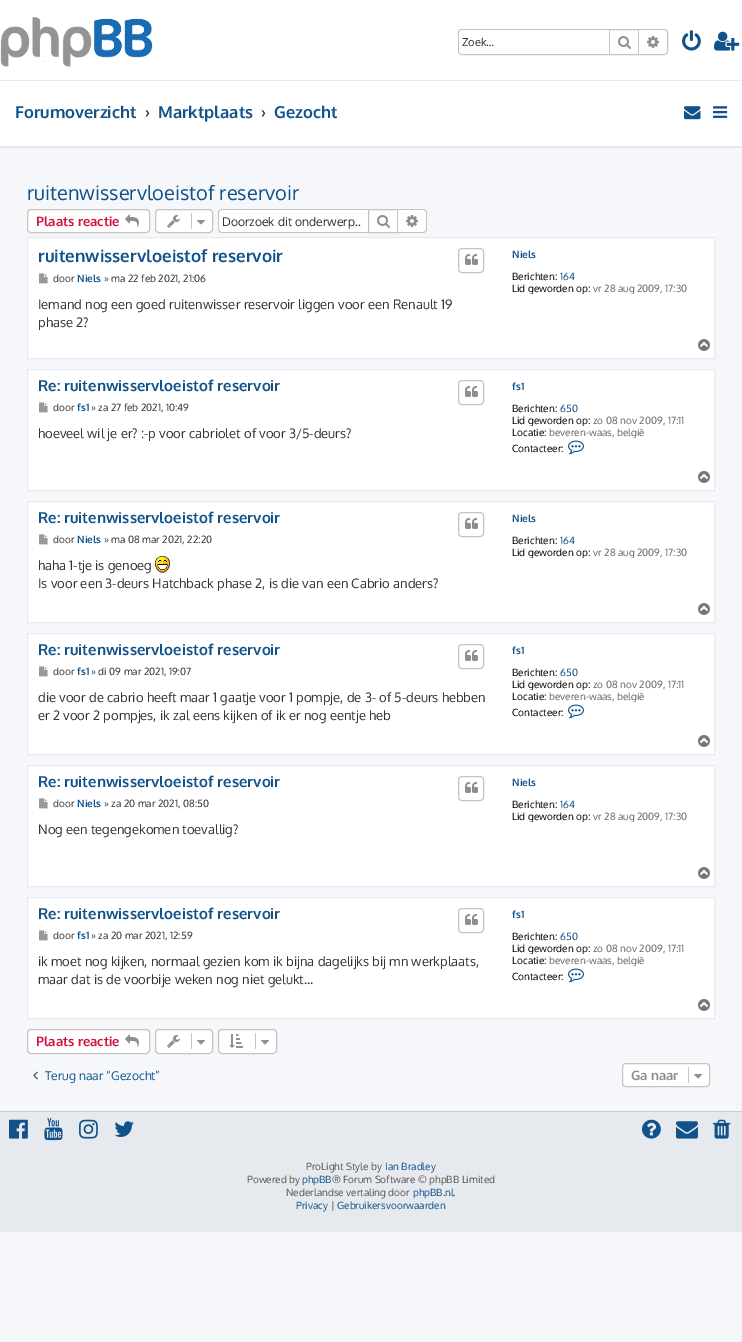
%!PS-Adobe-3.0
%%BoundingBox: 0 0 742 1342
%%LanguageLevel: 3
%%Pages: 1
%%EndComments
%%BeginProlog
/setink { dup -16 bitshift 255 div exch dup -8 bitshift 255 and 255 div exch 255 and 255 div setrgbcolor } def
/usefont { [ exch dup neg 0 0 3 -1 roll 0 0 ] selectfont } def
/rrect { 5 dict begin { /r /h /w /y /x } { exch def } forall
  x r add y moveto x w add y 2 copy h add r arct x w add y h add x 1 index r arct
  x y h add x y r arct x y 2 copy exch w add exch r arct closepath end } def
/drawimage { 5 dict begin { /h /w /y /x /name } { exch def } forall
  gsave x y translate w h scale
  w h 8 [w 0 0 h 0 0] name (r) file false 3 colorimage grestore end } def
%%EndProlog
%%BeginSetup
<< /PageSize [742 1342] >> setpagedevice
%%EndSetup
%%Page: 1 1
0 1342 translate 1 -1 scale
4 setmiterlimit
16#F5F7FA setink
0 0 742 1342 rectfill
16#FFFFFF setink
0 0 742 80 rectfill
16#E6E9ED setink
0 80 742 1 rectfill
(img1.raw) 0 17 153 50 drawimage
16#C7C3BF setink
458.5 29.5 209 25 3.5 rrect stroke
16#FFFFFF setink
463 30 moveto 609 30 lineto 609 54 lineto 463 54 lineto 461 54 459 52 459 50 curveto 459 34 lineto 459 32 461 30 463 30 curveto closepath fill
/Oxygen-Regular 11 usefont
16#333333 setink
462 46 moveto (Zoek…) show
16#C7C3BF setink
638 30 1 24 rectfill
609 30 1 24 rectfill
(img2.raw) 618 36 13 13 drawimage
16#FFFFFF setink
639 30 moveto 663 30 lineto 665 30 667 32 667 34 curveto 667 50 lineto 667 52 665 54 663 54 curveto 639 54 lineto closepath fill
(img3.raw) 647 36 12 12 drawimage
(img4.raw) 682 30 19 21 drawimage
(img5.raw) 714 31 26 20 drawimage
0 81 742 65 rectfill
16#E6E9ED setink
0 146 742 2 rectfill
/Oxygen-Bold 16.5 usefont
16#105289 setink
15 118 moveto (Forumoverzicht) show
16#333333 setink
145 118 moveto (›) show
16#105289 setink
158 118 moveto (Marktplaats) show
16#333333 setink
261 118 moveto (›) show
16#105289 setink
274 118 moveto (Gezocht) show
(img6.raw) 684 106 17 14 drawimage
(img7.raw) 713 106 15 12 drawimage
/Oxygen-Regular 20 usefont
27 200 moveto (ruitenwisservloeistof reservoir) show
16#FFFFFF setink
27.5 209.5 122 23 3.5 rrect gsave fill grestore
16#C7C3BF setink
stroke
/Oxygen-Bold 13 usefont
16#D31141 setink
36 226 moveto (Plaats reactie) show
(img8.raw) 125 214 14 13 drawimage
16#FFFFFF setink
155.5 209.5 57 23 3.5 rrect gsave fill grestore
16#C7C3BF setink
stroke
(img9.raw) 167 215 13 13 drawimage
191 213 1 16 rectfill
(img10.raw) 197 220 8 5 drawimage
16#FFFFFF setink
222 210 moveto 368 210 lineto 368 232 lineto 222 232 lineto 220.5 232 219 230.5 219 229 curveto 219 213 lineto 219 211.5 220.5 210 222 210 curveto closepath fill
16#C7C3BF setink
222 209 moveto 368 209 lineto 368 233 lineto 222 233 lineto 220 233 218 231 218 229 curveto 218 213 lineto 218 211 220 209 222 209 curveto closepath 222 210 moveto 368 210 lineto 368 232 lineto 222 232 lineto 220 232 219 231 219 229 curveto 219 213 lineto 219 211 220 210 222 210 curveto closepath eofill
gsave
222 214 139 15 rectclip
/Oxygen-Regular 12.1 usefont
16#333333 setink
222 226 moveto (Doorzoek dit onderwerp…) show
grestore
16#FFFFFF setink
368.5 209.5 moveto 397.5 209.5 lineto 397.5 232.5 lineto 368.5 232.5 lineto closepath gsave fill grestore
16#C7C3BF setink
stroke
(img2.raw) 377 215 13 13 drawimage
16#FFFFFF setink
398 210 moveto 423 210 lineto 424.5 210 426 211.5 426 213 curveto 426 229 lineto 426 230.5 424.5 232 423 232 curveto 398 232 lineto closepath fill
16#C7C3BF setink
398 209 moveto 423 209 lineto 425 209 427 211 427 213 curveto 427 229 lineto 427 231 425 233 423 233 curveto 398 233 lineto closepath 398 210 moveto 423 210 lineto 424.5 210 426 211.5 426 213 curveto 426 229 lineto 426 230.5 424.5 232 423 232 curveto 398 232 lineto closepath eofill
(img3.raw) 406 215 12 12 drawimage
16#FFFFFF setink
27.5 237.5 moveto 714.5 237.5 lineto 714.5 358.5 lineto 27.5 358.5 lineto closepath gsave fill grestore
16#E6E9ED setink
stroke
/Oxygen-Bold 17 usefont
16#105289 setink
38 262 moveto (ruitenwisservloeistof reservoir) show
16#C7C3BF setink
458.5 248.5 25 24 3.5 rrect stroke
(img11.raw) 465 254 13 11 drawimage
(img12.raw) 39 273 9 11 drawimage
/Oxygen-Regular 10 usefont
16#333333 setink
53 282 moveto (door) show
/Oxygen-Bold 10 usefont
16#105289 setink
77 282 moveto (Niels) show
/Oxygen-Regular 10 usefont
16#333333 setink
104 282 moveto (» ma 22 feb 2021, 21:06) show
/Oxygen-Regular 13 usefont
38 309 moveto (Iemand nog een goed ruitenwisser reservoir liggen voor een Renault 19) show
38 327 moveto (phase 2?) show
/Oxygen-Bold 10 usefont
16#105289 setink
512 258 moveto (Niels) show
/Oxygen-Regular 10 usefont
16#000000 setink
512 280 moveto (Berichten:) show
16#105289 setink
560 280 moveto (164) show
gsave
512 282 192 12 rectclip
16#000000 setink
512 292 moveto (Lid geworden op:) show
16#666666 setink
593 292 moveto (vr 28 aug 2009, 17:30) show
grestore
(img13.raw) 698 339 12 12 drawimage
16#FFFFFF setink
27.5 369.5 moveto 714.5 369.5 lineto 714.5 490.5 lineto 27.5 490.5 lineto closepath gsave fill grestore
16#E6E9ED setink
stroke
/Oxygen-Bold 15 usefont
16#105289 setink
38 391 moveto (Re: ruitenwisservloeistof reservoir) show
16#C7C3BF setink
458.5 380.5 25 24 3.5 rrect stroke
(img11.raw) 465 386 13 11 drawimage
(img12.raw) 39 402 9 11 drawimage
/Oxygen-Regular 10 usefont
16#333333 setink
53 411 moveto (door) show
/Oxygen-Bold 10 usefont
16#105289 setink
77 411 moveto (fs1) show
/Oxygen-Regular 10 usefont
16#333333 setink
91 411 moveto (» za 27 feb 2021, 10:49) show
/Oxygen-Regular 13 usefont
38 438 moveto (hoeveel wil je er? :-p voor cabriolet of voor 3/5-deurs?) show
/Oxygen-Bold 10 usefont
16#105289 setink
512 390 moveto (fs1) show
/Oxygen-Regular 10 usefont
16#000000 setink
512 412 moveto (Berichten:) show
16#105289 setink
560 412 moveto (650) show
gsave
512 414 192 12 rectclip
16#000000 setink
512 424 moveto (Lid geworden op:) show
grestore
16#666666 setink
593 424 moveto (zo 08 nov 2009, 17:11) show
16#000000 setink
512 436 moveto (Locatie:) show
gsave
512 426 192 12 rectclip
16#666666 setink
549 436 moveto (beveren-waas, belgië) show
grestore
512 452 moveto (Contacteer:) show
(img14.raw) 568 440 16 15 drawimage
(img13.raw) 698 471 12 12 drawimage
16#FFFFFF setink
27.5 501.5 moveto 714.5 501.5 lineto 714.5 622.5 lineto 27.5 622.5 lineto closepath gsave fill grestore
16#E6E9ED setink
stroke
/Oxygen-Bold 15 usefont
16#105289 setink
38 523 moveto (Re: ruitenwisservloeistof reservoir) show
16#C7C3BF setink
458.5 512.5 25 24 3.5 rrect stroke
(img11.raw) 465 518 13 11 drawimage
(img12.raw) 39 534 9 11 drawimage
/Oxygen-Regular 10 usefont
16#333333 setink
53 543 moveto (door) show
/Oxygen-Bold 10 usefont
16#105289 setink
77 543 moveto (Niels) show
/Oxygen-Regular 10 usefont
16#333333 setink
104 543 moveto (» ma 08 mar 2021, 22:20) show
/Oxygen-Regular 13 usefont
38 570 moveto (haha 1-tje is genoeg) show
(img15.raw) 155 556 15 17 drawimage
38 588 moveto (Is voor een 3-deurs Hatchback phase 2, is die van een Cabrio anders?) show
/Oxygen-Bold 10 usefont
16#105289 setink
512 522 moveto (Niels) show
/Oxygen-Regular 10 usefont
16#000000 setink
512 544 moveto (Berichten:) show
16#105289 setink
560 544 moveto (164) show
gsave
512 546 192 12 rectclip
16#000000 setink
512 556 moveto (Lid geworden op:) show
16#666666 setink
593 556 moveto (vr 28 aug 2009, 17:30) show
grestore
(img13.raw) 698 603 12 12 drawimage
16#FFFFFF setink
27.5 633.5 moveto 714.5 633.5 lineto 714.5 754.5 lineto 27.5 754.5 lineto closepath gsave fill grestore
16#E6E9ED setink
stroke
/Oxygen-Bold 15 usefont
16#105289 setink
38 655 moveto (Re: ruitenwisservloeistof reservoir) show
16#C7C3BF setink
458.5 644.5 25 24 3.5 rrect stroke
(img11.raw) 465 650 13 11 drawimage
(img12.raw) 39 666 9 11 drawimage
/Oxygen-Regular 10 usefont
16#333333 setink
53 675 moveto (door) show
/Oxygen-Bold 10 usefont
16#105289 setink
77 675 moveto (fs1) show
/Oxygen-Regular 10 usefont
16#333333 setink
91 675 moveto (» di 09 mar 2021, 19:07) show
/Oxygen-Regular 13 usefont
38 702 moveto (die voor de cabrio heeft maar 1 gaatje voor 1 pompje, de 3- of 5-deurs hebben) show
38 720 moveto (er 2 voor 2 pompjes, ik zal eens kijken of ik er nog eentje heb) show
/Oxygen-Bold 10 usefont
16#105289 setink
512 654 moveto (fs1) show
/Oxygen-Regular 10 usefont
16#000000 setink
512 676 moveto (Berichten:) show
16#105289 setink
560 676 moveto (650) show
gsave
512 678 192 12 rectclip
16#000000 setink
512 688 moveto (Lid geworden op:) show
grestore
16#666666 setink
593 688 moveto (zo 08 nov 2009, 17:11) show
16#000000 setink
512 700 moveto (Locatie:) show
gsave
512 690 192 12 rectclip
16#666666 setink
549 700 moveto (beveren-waas, belgië) show
grestore
512 716 moveto (Contacteer:) show
(img14.raw) 568 704 16 15 drawimage
(img13.raw) 698 735 12 12 drawimage
16#FFFFFF setink
27.5 765.5 moveto 714.5 765.5 lineto 714.5 886.5 lineto 27.5 886.5 lineto closepath gsave fill grestore
16#E6E9ED setink
stroke
/Oxygen-Bold 15 usefont
16#105289 setink
38 787 moveto (Re: ruitenwisservloeistof reservoir) show
16#C7C3BF setink
458.5 776.5 25 24 3.5 rrect stroke
(img11.raw) 465 782 13 11 drawimage
(img12.raw) 39 798 9 11 drawimage
/Oxygen-Regular 10 usefont
16#333333 setink
53 807 moveto (door) show
/Oxygen-Bold 10 usefont
16#105289 setink
77 807 moveto (Niels) show
/Oxygen-Regular 10 usefont
16#333333 setink
104 807 moveto (» za 20 mar 2021, 08:50) show
/Oxygen-Regular 13 usefont
38 834 moveto (Nog een tegengekomen toevallig?) show
/Oxygen-Bold 10 usefont
16#105289 setink
512 786 moveto (Niels) show
/Oxygen-Regular 10 usefont
16#000000 setink
512 808 moveto (Berichten:) show
16#105289 setink
560 808 moveto (164) show
gsave
512 810 192 12 rectclip
16#000000 setink
512 820 moveto (Lid geworden op:) show
16#666666 setink
593 820 moveto (vr 28 aug 2009, 17:30) show
grestore
(img13.raw) 698 867 12 12 drawimage
16#FFFFFF setink
27.5 897.5 moveto 714.5 897.5 lineto 714.5 1018.5 lineto 27.5 1018.5 lineto closepath gsave fill grestore
16#E6E9ED setink
stroke
/Oxygen-Bold 15 usefont
16#105289 setink
38 919 moveto (Re: ruitenwisservloeistof reservoir) show
16#C7C3BF setink
458.5 908.5 25 24 3.5 rrect stroke
(img11.raw) 465 914 13 11 drawimage
(img12.raw) 39 930 9 11 drawimage
/Oxygen-Regular 10 usefont
16#333333 setink
53 939 moveto (door) show
/Oxygen-Bold 10 usefont
16#105289 setink
77 939 moveto (fs1) show
/Oxygen-Regular 10 usefont
16#333333 setink
91 939 moveto (» za 20 mar 2021, 12:59) show
/Oxygen-Regular 13 usefont
38 966 moveto (ik moet nog kijken, normaal gezien kom ik bijna dagelijks bij mn werkplaats,) show
38 984 moveto (maar dat is de voorbije weken nog niet gelukt...) show
/Oxygen-Bold 10 usefont
16#105289 setink
512 918 moveto (fs1) show
/Oxygen-Regular 10 usefont
16#000000 setink
512 940 moveto (Berichten:) show
16#105289 setink
560 940 moveto (650) show
gsave
512 942 192 12 rectclip
16#000000 setink
512 952 moveto (Lid geworden op:) show
grestore
16#666666 setink
593 952 moveto (zo 08 nov 2009, 17:11) show
16#000000 setink
512 964 moveto (Locatie:) show
gsave
512 954 192 12 rectclip
16#666666 setink
549 964 moveto (beveren-waas, belgië) show
grestore
512 980 moveto (Contacteer:) show
(img14.raw) 568 968 16 15 drawimage
(img13.raw) 698 999 12 12 drawimage
16#FFFFFF setink
27.5 1029.5 122 24 3.5 rrect gsave fill grestore
16#C7C3BF setink
stroke
/Oxygen-Bold 13 usefont
16#D31141 setink
36 1046 moveto (Plaats reactie) show
(img8.raw) 125 1034 14 13 drawimage
16#FFFFFF setink
155.5 1029.5 57 24 3.5 rrect gsave fill grestore
16#C7C3BF setink
stroke
(img9.raw) 167 1035 13 13 drawimage
191 1033 1 16 rectfill
(img10.raw) 197 1040 8 5 drawimage
16#FFFFFF setink
218.5 1029.5 58 24 3.5 rrect gsave fill grestore
16#C7C3BF setink
stroke
(img16.raw) 229 1034 14 14 drawimage
255 1033 1 16 rectfill
(img10.raw) 261 1040 8 5 drawimage
(img17.raw) 33 1071 5 9 drawimage
/Oxygen-Regular 12.1 usefont
16#105289 setink
45 1080 moveto (Terug naar “Gezocht”) show
16#FFFFFF setink
622.5 1063.5 87 23 3.5 rrect gsave fill grestore
16#C7C3BF setink
stroke
/Oxygen-Bold 13 usefont
16#8F8F8F setink
631 1080 moveto (Ga naar) show
16#C7C3BF setink
688 1067 1 16 rectfill
(img10.raw) 694 1074 8 5 drawimage
16#E6E9ED setink
0 1112 742 120 rectfill
16#CCCCCC setink
0 1111 742 1 rectfill
(img18.raw) 9 1119 19 20 drawimage
(img19.raw) 44 1118 19 23 drawimage
(img20.raw) 79 1119 19 20 drawimage
(img21.raw) 114 1121 20 16 drawimage
(img22.raw) 642 1119 19 20 drawimage
(img23.raw) 676 1121 22 18 drawimage
(img24.raw) 713 1119 18 20 drawimage
/Oxygen-Regular 10 usefont
16#555555 setink
306 1170 moveto (ProLight Style by) show
16#105289 setink
385 1170 moveto (Ian Bradley) show
16#555555 setink
247 1183 moveto (Powered by) show
16#105289 setink
302 1183 moveto (phpBB) show
16#555555 setink
332 1183 moveto (® Forum Software © phpBB Limited) show
286 1196 moveto (Nederlandse vertaling door) show
16#105289 setink
413 1196 moveto (phpBB.nl) show
16#555555 setink
453 1196 moveto (.) show
16#105289 setink
296 1209 moveto (Privacy) show
16#555555 setink
331 1209 moveto (|) show
16#105289 setink
337 1209 moveto (Gebruikersvoorwaarden) show
showpage
%%EOF
